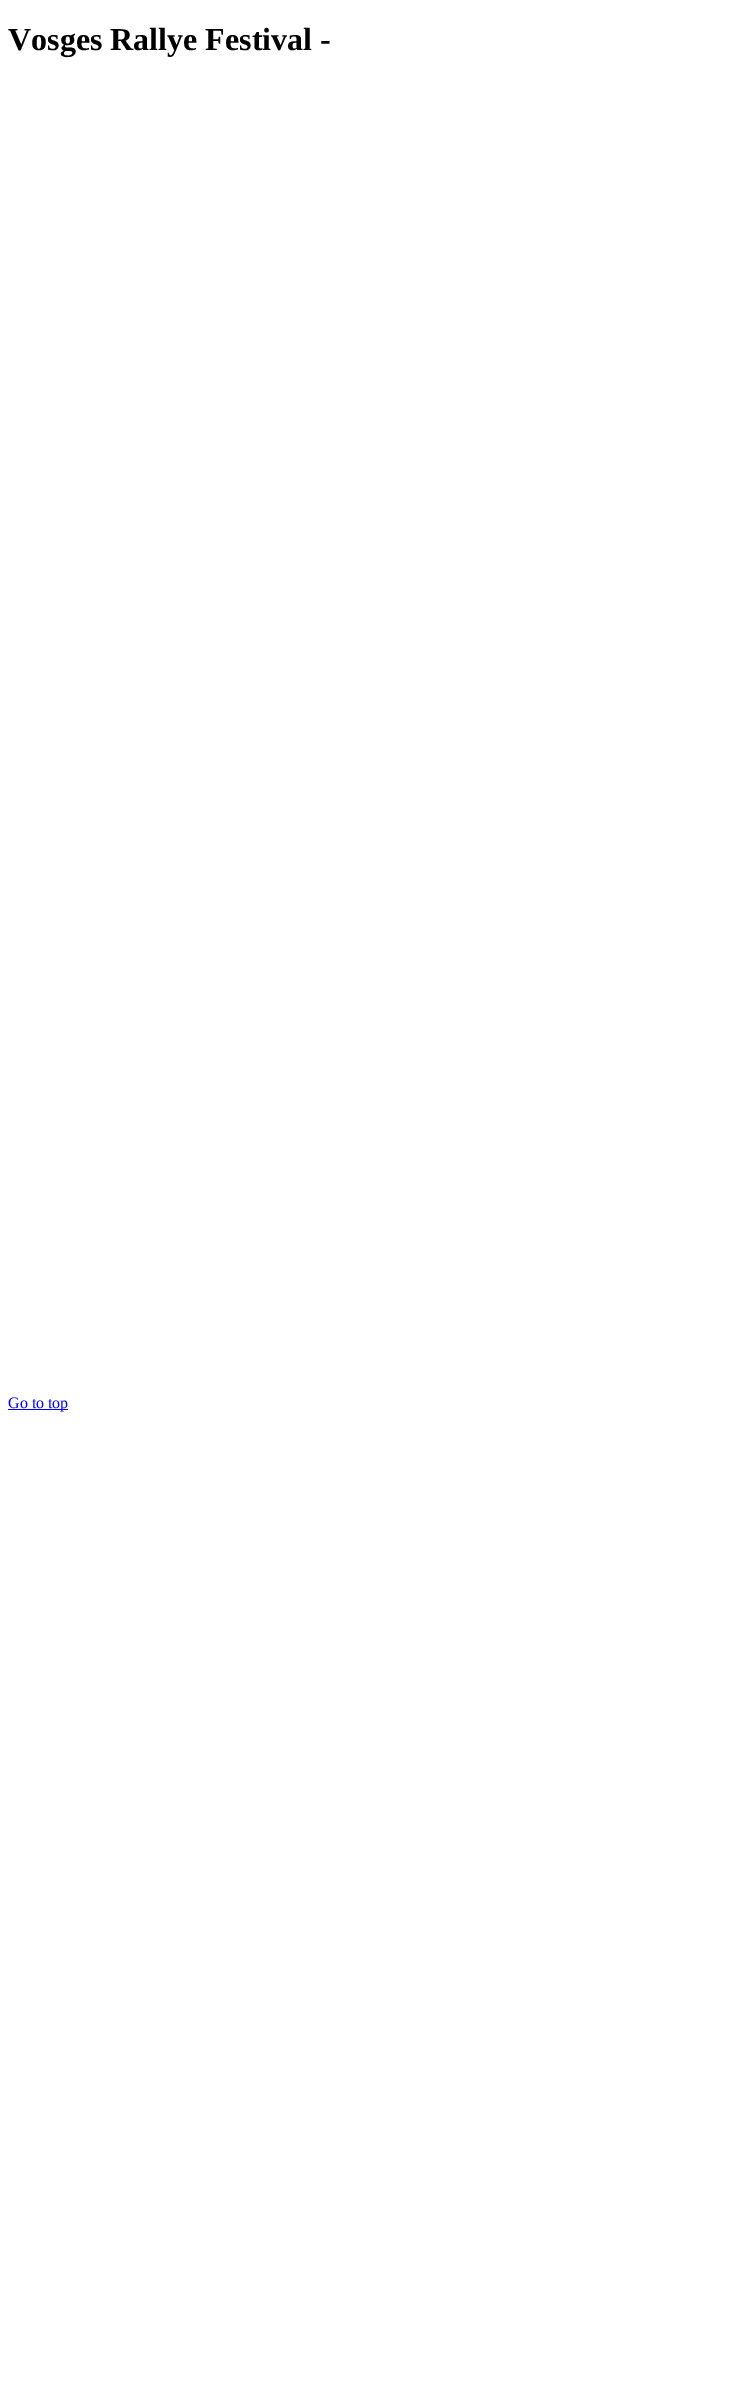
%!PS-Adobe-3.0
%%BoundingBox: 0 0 753 2399
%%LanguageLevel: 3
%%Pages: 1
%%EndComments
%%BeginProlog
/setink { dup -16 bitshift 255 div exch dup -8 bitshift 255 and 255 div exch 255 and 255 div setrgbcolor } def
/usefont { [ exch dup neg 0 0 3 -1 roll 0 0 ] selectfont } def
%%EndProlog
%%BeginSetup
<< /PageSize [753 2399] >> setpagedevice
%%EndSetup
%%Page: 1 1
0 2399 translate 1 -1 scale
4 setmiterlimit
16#FFFFFF setink
0 0 753 2399 rectfill
/LiberationSerif-Bold 32 usefont
16#000000 setink
8 50 moveto (Vosges Rallye Festival -) show
16#0000EE setink
8 1409 60 1 rectfill
/LiberationSerif-Regular 16 usefont
8 1408 moveto (Go to top) show
showpage
%%EOF
